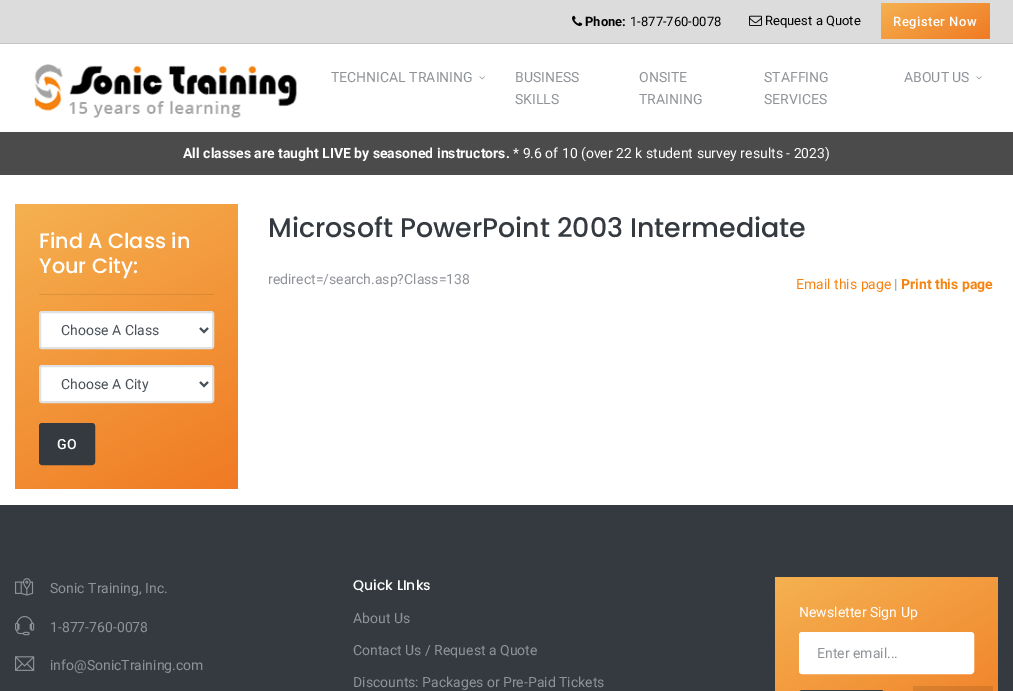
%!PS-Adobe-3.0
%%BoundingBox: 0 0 1013 691
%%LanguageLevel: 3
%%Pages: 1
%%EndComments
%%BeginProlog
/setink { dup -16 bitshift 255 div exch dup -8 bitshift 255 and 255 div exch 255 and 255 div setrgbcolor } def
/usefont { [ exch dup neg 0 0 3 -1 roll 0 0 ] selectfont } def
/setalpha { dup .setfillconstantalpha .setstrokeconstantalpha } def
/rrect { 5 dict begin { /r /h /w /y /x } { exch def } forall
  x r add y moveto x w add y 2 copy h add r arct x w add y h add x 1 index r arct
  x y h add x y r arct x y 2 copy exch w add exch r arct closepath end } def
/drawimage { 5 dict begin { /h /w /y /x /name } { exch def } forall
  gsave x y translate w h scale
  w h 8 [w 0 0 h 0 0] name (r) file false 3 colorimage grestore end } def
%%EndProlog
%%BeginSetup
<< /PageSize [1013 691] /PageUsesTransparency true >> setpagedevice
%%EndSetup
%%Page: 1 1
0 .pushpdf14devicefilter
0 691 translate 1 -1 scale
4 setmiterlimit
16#FFFFFF setink
0 0 1013 691 rectfill
16#DCDCDC setink
0 0 1013 43 rectfill
16#C6C6C6 setink
0 43 1013 1 rectfill
(img1.raw) 572 15 11 11 drawimage
/Roboto-Bold 13 usefont
16#000000 setink
585 26 moveto (Phone:) show
/Roboto-Regular 13 usefont
630 26 moveto (1-877-760-0078) show
(img2.raw) 749 15 13 11 drawimage
765 25 moveto (Request a Quote) show
gsave 881 3 109 36 3 rrect clip newpath
<< /ShadingType 2 /ColorSpace /DeviceRGB /Coords [805 -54 892 96] /Extend [true true] /Function << /FunctionType 3 /Domain [0 1] /Functions [<< /FunctionType 2 /Domain [0 1] /C0 [0.941 0.478 0.137] /C1 [0.961 0.694 0.314] /N 1 >> << /FunctionType 2 /Domain [0 1] /C0 [0.961 0.694 0.314] /C1 [0.941 0.478 0.137] /N 1 >>] /Bounds [0.5] /Encode [0 1 0 1] >> >> shfill grestore
/Roboto-Medium 13 usefont
16#FFFFFF setink
893 26 moveto 0.5 0 (Register Now) ashow
(img3.raw) 34 64 264 54 drawimage
/Roboto-Regular 14 usefont
16#8F9397 setink
331 82 moveto (TECHNICAL TRAINING) show
(img4.raw) 479 76 6 4 drawimage
[
    [(BUSINESS) 515 82]
    [(SKILLS) 515 104]
    [(ONSITE) 639 82]
    [(TRAINING) 639 104]
    [(STAFFING) 764 82]
    [(SERVICES) 764 104]
    [(ABOUT US) 904 82]
] { aload pop moveto show } forall
(img4.raw) 976 76 6 4 drawimage
16#4B4B4B setink
0 132 1013 43 rectfill
/Roboto-Bold 14 usefont
16#FFFFFF setink
183 158 moveto (All classes are taught LIVE by seasoned instructors.) show
/Roboto-Regular 14 usefont
513 158 moveto (* 9.6 of 10 \(over 22 k student survey results - 2023\)) show
gsave 15 204 223 285 3 rrect clip newpath
<< /ShadingType 2 /ColorSpace /DeviceRGB /Coords [37 191 216 502] /Extend [true true] /Function << /FunctionType 2 /Domain [0 1] /C0 [0.961 0.694 0.314] /C1 [0.941 0.478 0.137] /N 1 >> >> shfill grestore
gsave 39 294 moveto 214 294 lineto 214 295 lineto 39 295 lineto closepath clip newpath
<< /ShadingType 2 /ColorSpace /DeviceRGB /Coords [37 191 216 502] /Extend [true true] /Function << /FunctionType 2 /Domain [0 1] /C0 [0.867 0.624 0.282] /C1 [0.847 0.431 0.125] /N 1 >> >> shfill grestore
/Poppins-Medium 20.75 usefont
39 248 moveto (Find A Class in) show
39 273 moveto (Your City:) show
40 312 173 36 2 rrect gsave fill grestore
16#DFE2E5 setink
2 setlinewidth
stroke
16#495057 setink
200 328 moveto 204 332 lineto 208 328 lineto stroke
/Roboto-Regular 14 usefont
61 335 moveto (Choose A Class) show
16#FFFFFF setink
40 366 173 36 2 rrect gsave fill grestore
16#DFE2E5 setink
stroke
16#495057 setink
200 382 moveto 204 386 lineto 208 382 lineto stroke
61 389 moveto (Choose A City) show
16#343A40 setink
40 424 54 40 2 rrect gsave fill grestore
stroke
/Roboto-Medium 14 usefont
16#FFFFFF setink
57 449 moveto 0.5 0 (GO) ashow
/Poppins-Medium 26.9 usefont
16#343A40 setink
268 237 moveto (Microsoft PowerPoint 2003 Intermediate) show
/Roboto-Regular 14 usefont
16#8F9397 setink
268 284 moveto (redirect=/search.asp?Class=138) show
16#F6830F setink
796 289 moveto (Email this page) show
16#8F9397 setink
894 289 moveto (|) show
/Roboto-Bold 14 usefont
16#F6830F setink
901 289 moveto (Print this page) show
16#343A40 setink
0 505 1013 186 rectfill
(img5.raw) 15 578 19 18 drawimage
/Roboto-Regular 14 usefont
16#8F9397 setink
50 593 moveto (Sonic Training, Inc.) show
(img6.raw) 15 616 20 20 drawimage
50 632 moveto (1-877-760-0078) show
(img7.raw) 15 656 20 15 drawimage
50 670 moveto (info@SonicTraining.com) show
/Poppins-Medium 14 usefont
16#FFFFFF setink
353 590 moveto (Quick LInks) show
/Roboto-Regular 14 usefont
16#8F9397 setink
[
    [(About Us) 353 623]
    [(Contact Us / Request a Quote) 353 655]
    [(Discounts: Packages or Pre-Paid Tickets) 353 687]
] { aload pop moveto show } forall
gsave 775 577 223 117 3 rrect clip newpath
<< /ShadingType 2 /ColorSpace /DeviceRGB /Coords [820 551 953 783] /Extend [true true] /Function << /FunctionType 2 /Domain [0 1] /C0 [0.961 0.694 0.314] /C1 [0.941 0.478 0.137] /N 1 >> >> shfill grestore
16#FFFFFF setink
799 617 moveto (Newsletter Sign Up) show
800 633 173 40 2 rrect gsave fill grestore
stroke
16#8F9397 setink
817 658 moveto (Enter email...) show
16#343A40 setink
800 691 83 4 2 rrect stroke
0.1 setalpha
16#000000 setink
913 686 moveto 913 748 lineto 993 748 lineto 993 686 lineto closepath 953 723 moveto 920 691 lineto 986 691 lineto closepath 940 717 moveto 918 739 lineto 918 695 lineto closepath 943 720 moveto 953 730 lineto 962 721 lineto 985 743 lineto 921 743 lineto closepath 966 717 moveto 988 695 lineto 988 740 lineto closepath fill
.poppdf14devicefilter showpage
%%EOF
